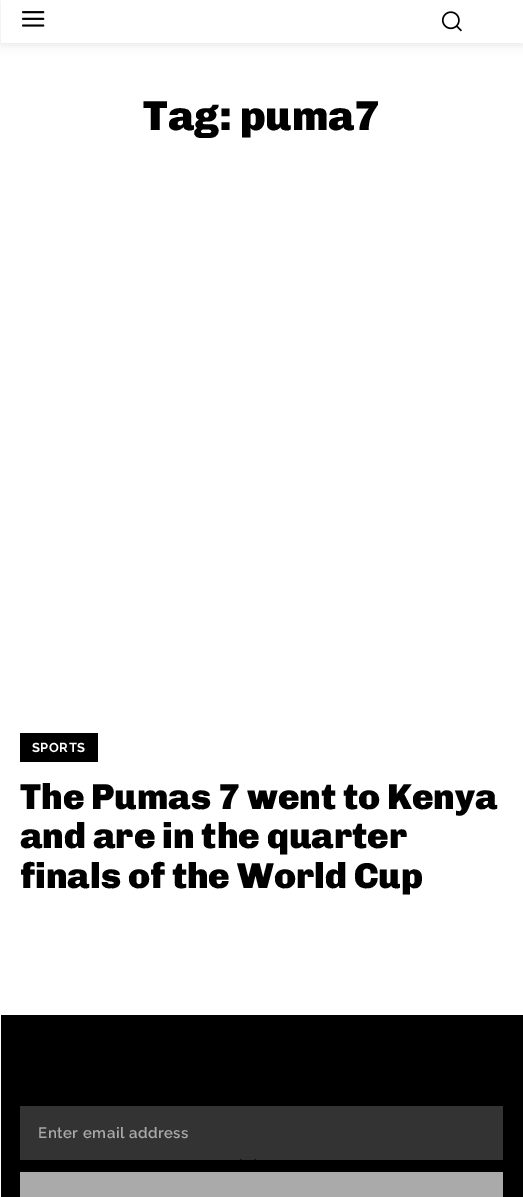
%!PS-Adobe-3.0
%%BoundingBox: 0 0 523 1197
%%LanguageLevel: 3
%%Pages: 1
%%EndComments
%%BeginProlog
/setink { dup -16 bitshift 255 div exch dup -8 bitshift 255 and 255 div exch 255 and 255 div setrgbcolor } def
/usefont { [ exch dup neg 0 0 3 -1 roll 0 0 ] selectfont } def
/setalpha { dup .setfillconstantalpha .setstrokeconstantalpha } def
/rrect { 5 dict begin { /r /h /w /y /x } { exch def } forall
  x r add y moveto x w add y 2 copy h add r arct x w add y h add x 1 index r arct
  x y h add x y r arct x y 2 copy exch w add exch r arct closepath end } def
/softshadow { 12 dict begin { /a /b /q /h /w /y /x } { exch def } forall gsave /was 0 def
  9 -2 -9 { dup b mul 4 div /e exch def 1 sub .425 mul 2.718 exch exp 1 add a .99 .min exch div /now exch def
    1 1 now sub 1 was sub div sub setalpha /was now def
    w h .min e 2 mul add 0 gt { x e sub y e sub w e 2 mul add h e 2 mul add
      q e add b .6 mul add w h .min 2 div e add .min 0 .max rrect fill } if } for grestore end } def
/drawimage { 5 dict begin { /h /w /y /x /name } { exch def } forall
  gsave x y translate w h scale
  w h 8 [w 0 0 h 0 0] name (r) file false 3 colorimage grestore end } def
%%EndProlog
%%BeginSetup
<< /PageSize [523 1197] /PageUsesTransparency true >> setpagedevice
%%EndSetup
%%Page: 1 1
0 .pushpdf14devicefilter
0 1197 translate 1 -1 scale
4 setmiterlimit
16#FFFFFF setink
0 0 523 1197 rectfill
(img1.raw) 22 11 23 16 drawimage
(img2.raw) 441 11 21 21 drawimage
gsave
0 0 moveto 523 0 lineto 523 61 lineto 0 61 lineto closepath 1 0 moveto 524 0 lineto 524 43 lineto 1 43 lineto closepath eoclip newpath
16#000000 setink
1 2 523 43 0 5 0.09 softshadow
grestore
/Chivo-Black 42 usefont
16#000000 setink
143 130 moveto (Tag: puma7) show
20 733 78 29 rectfill
/Raleway-Bold 13 usefont
16#FFFFFF setink
32 752 moveto 0.5 0 (SPORTS) ashow
/Chivo-Black 36 usefont
16#000000 setink
[
    [(The Pumas 7 went to Kenya) 20 809]
    [(and are in the quarter) 20 848]
    [(finals of the World Cup) 20 888]
] { aload pop moveto show } forall
1 1015 522 182 rectfill
16#333333 setink
20 1106 483 54 rectfill
/Raleway-SemiBold 15 usefont
16#AAAAAA setink
38 1138 moveto 0.5 0 (Enter email address) ashow
20 1172 483 25 rectfill
16#000000 setink
2 setlinewidth
256 1160 moveto 251.5 1164 244.5 1164 240 1160 curveto stroke
.poppdf14devicefilter showpage
%%EOF
